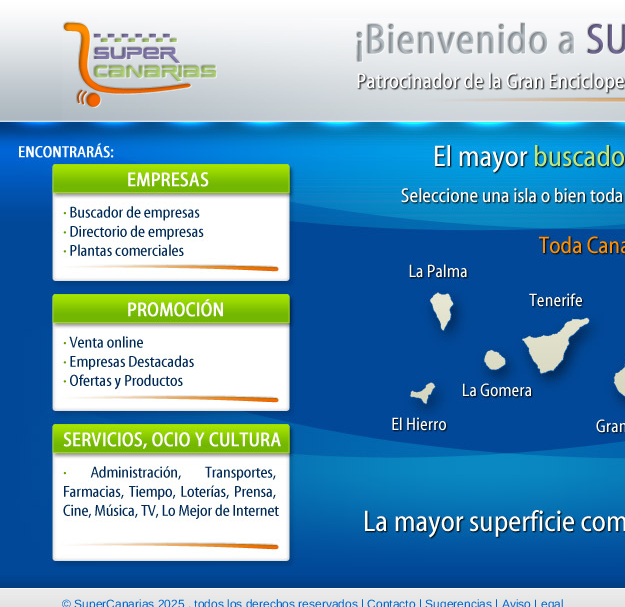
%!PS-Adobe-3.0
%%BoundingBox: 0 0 625 607
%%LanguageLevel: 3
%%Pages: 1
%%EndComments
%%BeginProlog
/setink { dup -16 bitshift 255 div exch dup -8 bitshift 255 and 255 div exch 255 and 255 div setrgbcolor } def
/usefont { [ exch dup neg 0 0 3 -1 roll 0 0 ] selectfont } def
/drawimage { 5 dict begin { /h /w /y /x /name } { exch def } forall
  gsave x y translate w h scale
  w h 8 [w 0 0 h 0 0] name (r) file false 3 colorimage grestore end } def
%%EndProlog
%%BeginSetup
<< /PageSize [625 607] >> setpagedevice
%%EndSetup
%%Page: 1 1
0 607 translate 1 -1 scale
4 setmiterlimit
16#014898 setink
0 0 625 607 rectfill
(img1.raw) 0 0 625 122 drawimage
(img2.raw) 62 18 563 104 drawimage
(img3.raw) 0 122 625 445 drawimage
(img4.raw) 0 575 625 32 drawimage
/LiberationSans-Regular 12 usefont
16#0066CC setink
62 608 moveto (© SuperCanarias 2025 , todos los derechos reservados | Contacto | Sugerencias | Aviso Legal) show
showpage
%%EOF
